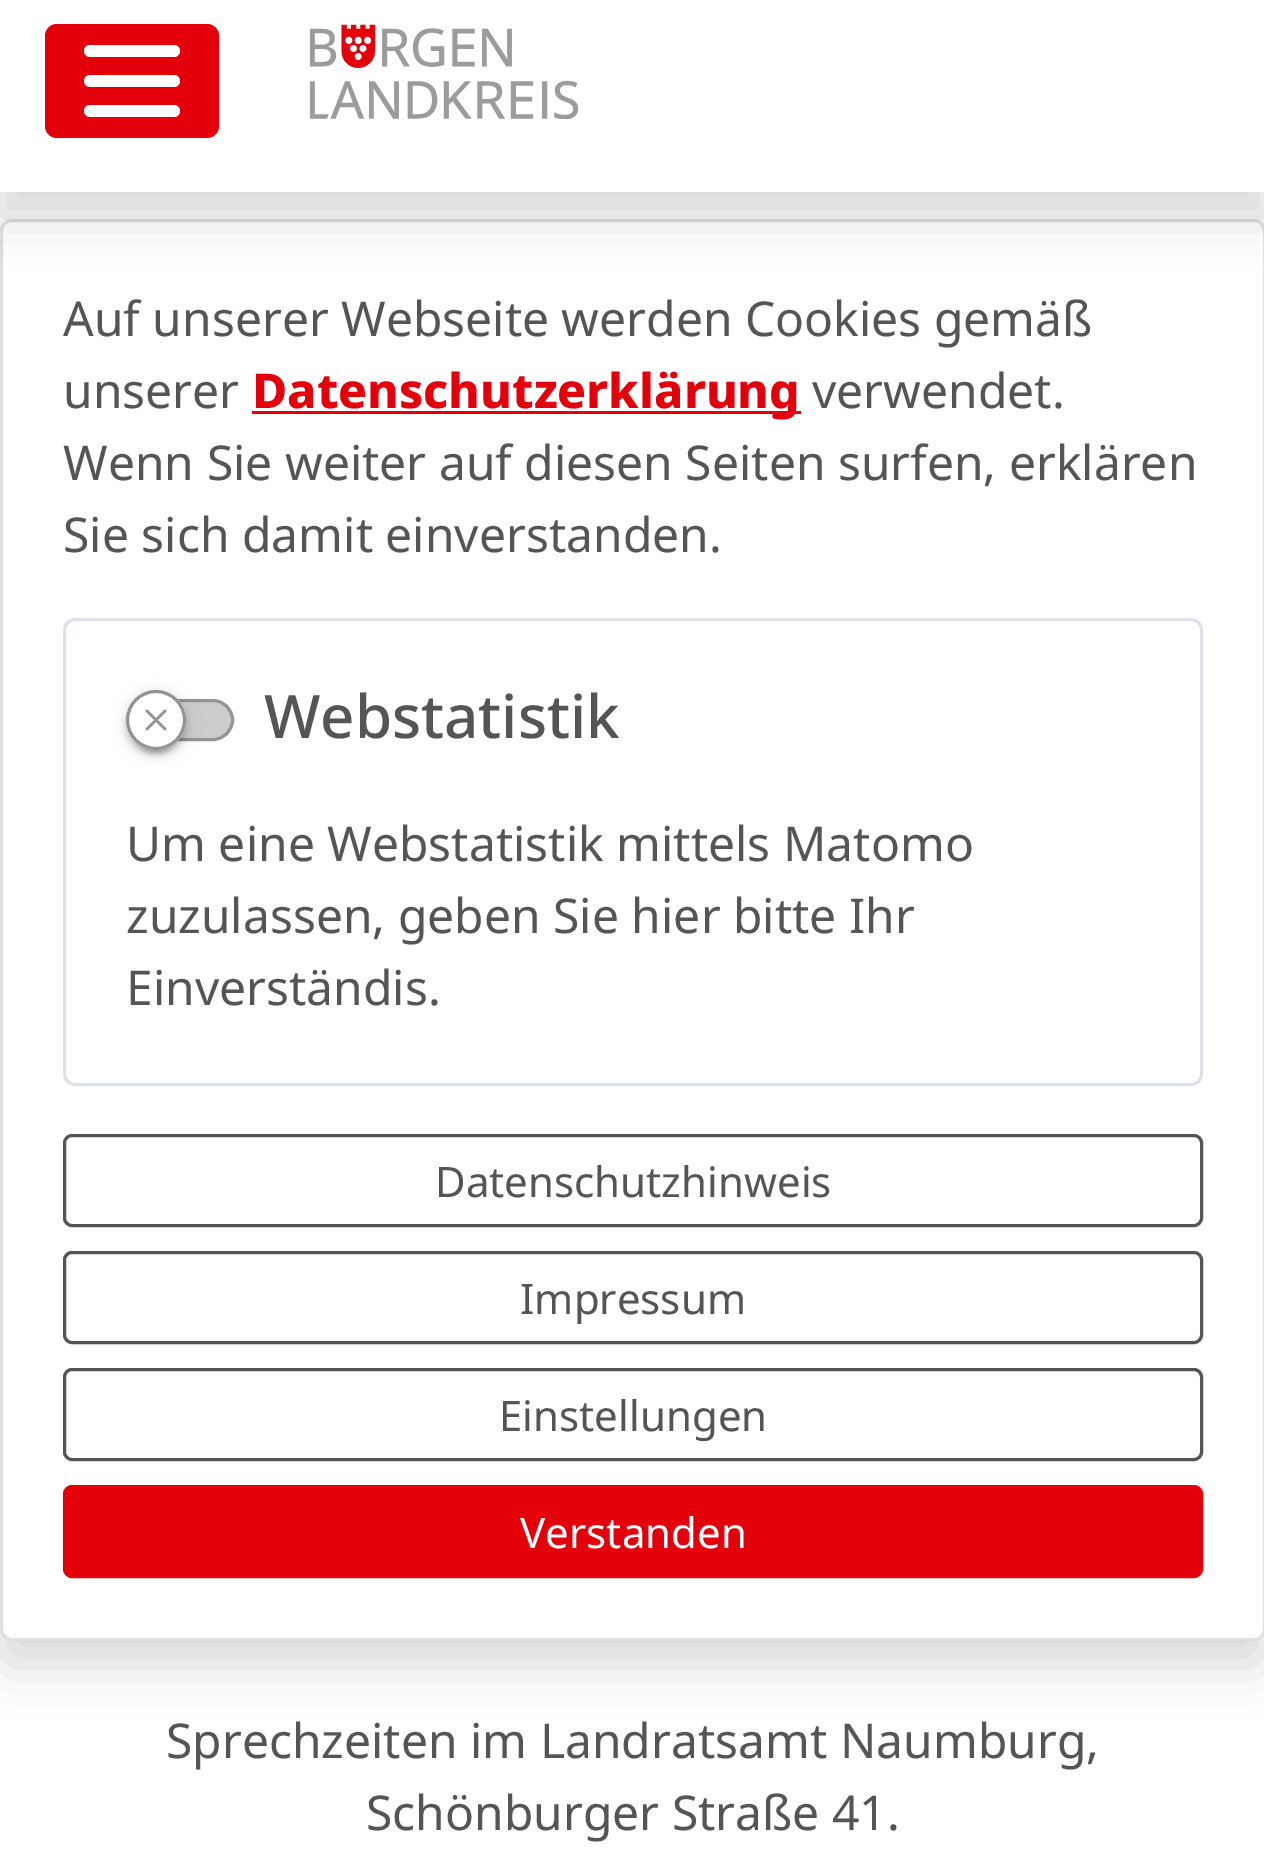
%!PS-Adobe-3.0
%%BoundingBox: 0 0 1264 1860
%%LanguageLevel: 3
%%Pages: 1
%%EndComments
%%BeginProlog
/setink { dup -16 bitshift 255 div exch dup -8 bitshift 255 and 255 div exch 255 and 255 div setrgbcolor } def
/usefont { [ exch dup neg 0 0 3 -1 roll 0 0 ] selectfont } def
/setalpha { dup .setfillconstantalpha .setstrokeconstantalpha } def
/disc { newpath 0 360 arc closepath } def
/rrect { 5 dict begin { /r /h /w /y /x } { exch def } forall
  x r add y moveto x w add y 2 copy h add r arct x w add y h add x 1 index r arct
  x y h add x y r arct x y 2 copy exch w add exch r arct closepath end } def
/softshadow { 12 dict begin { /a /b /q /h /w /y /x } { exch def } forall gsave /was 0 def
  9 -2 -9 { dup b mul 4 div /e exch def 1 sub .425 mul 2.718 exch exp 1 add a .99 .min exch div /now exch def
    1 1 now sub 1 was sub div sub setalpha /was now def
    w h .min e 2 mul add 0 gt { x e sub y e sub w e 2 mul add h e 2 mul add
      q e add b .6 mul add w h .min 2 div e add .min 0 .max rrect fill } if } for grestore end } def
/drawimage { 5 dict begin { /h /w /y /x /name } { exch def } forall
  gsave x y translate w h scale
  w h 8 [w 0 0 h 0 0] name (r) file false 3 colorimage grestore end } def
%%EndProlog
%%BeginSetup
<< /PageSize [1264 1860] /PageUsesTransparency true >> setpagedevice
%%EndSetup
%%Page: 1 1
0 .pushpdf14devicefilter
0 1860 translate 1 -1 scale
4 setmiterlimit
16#FFFFFF setink
0 0 1264 1860 rectfill
16#000000 setink
0 243 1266 1422 12 24 0.15 softshadow
16#FFFFFF setink
0 219 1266 1422 12 rrect fill
0.12 setalpha
16#000000 setink
3 setlinewidth
1.5 220.5 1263 1419 10.5 rrect stroke
/NotoSans-Regular 48 usefont
1 setalpha
16#555555 setink
63 336 moveto (Auf unserer Webseite werden Cookies gemäß) show
63 408 moveto (unserer) show
16#E3000B setink
252 411 549 3 rectfill
/NotoSans-ExtraBold 48 usefont
252 408 moveto (Datenschutzerklärung) show
/NotoSans-Regular 48 usefont
16#555555 setink
[
    [(verwendet.) 812 408]
    [(Wenn Sie weiter auf diesen Seiten surfen, erklären) 63 480]
    [(Sie sich damit einverstanden.) 63 552]
] { aload pop moveto show } forall
16#DEE2E6 setink
64.5 619.5 1137 465 10.5 rrect stroke
16#CCCCCC setink
127.5 700.5 105 39 19.5 rrect gsave fill grestore
16#949494 setink
stroke
16#000000 setink
126 693 60 60 30 7.5 0.12 softshadow
126 696 60 60 30 3 0.14 softshadow
132 705 48 48 24 1.5 0.2 softshadow
16#FFFFFF setink
156 720 30 disc fill
(img1.raw) 145 709 22 22 drawimage
16#949494 setink
156 720 28.5 disc stroke
/NotoSans-Medium 60 usefont
16#555555 setink
264 738 moveto (Webstatistik) show
/NotoSans-Regular 48 usefont
[
    [(Um eine Webstatistik mittels Matomo) 126 861]
    [(zuzulassen, geben Sie hier bitte Ihr) 126 933]
    [(Einverständis.) 126 1005]
] { aload pop moveto show } forall
64.5 1135.5 1137 90 7.5 rrect stroke
/NotoSans-Regular 42 usefont
435 1197 moveto (Datenschutzhinweis) show
64.5 1252.5 1137 90 7.5 rrect stroke
520 1314 moveto (Impressum) show
64.5 1369.5 1137 90 7.5 rrect stroke
499 1431 moveto (Einstellungen) show
16#E3000B setink
64.5 1486.5 1137 90 7.5 rrect gsave fill grestore
stroke
16#FFFFFF setink
520 1548 moveto (Verstanden) show
16#000000 setink
0 24 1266 192 0 24 0.15 softshadow
16#FFFFFF setink
0 0 1264 192 rectfill
16#E3000B setink
45 24 174 114 12 rrect fill
16#FFFFFF setink
84 45 96 12 6 rrect fill
84 75 96 12 6 rrect fill
84 105 96 12 6 rrect fill
(img2.raw) 309 24 270 96 drawimage
/NotoSans-Regular 48 usefont
16#555555 setink
166 1758 moveto (Sprechzeiten im Landratsamt Naumburg,) show
366 1830 moveto (Schönburger Straße 41.) show
.poppdf14devicefilter showpage
%%EOF
